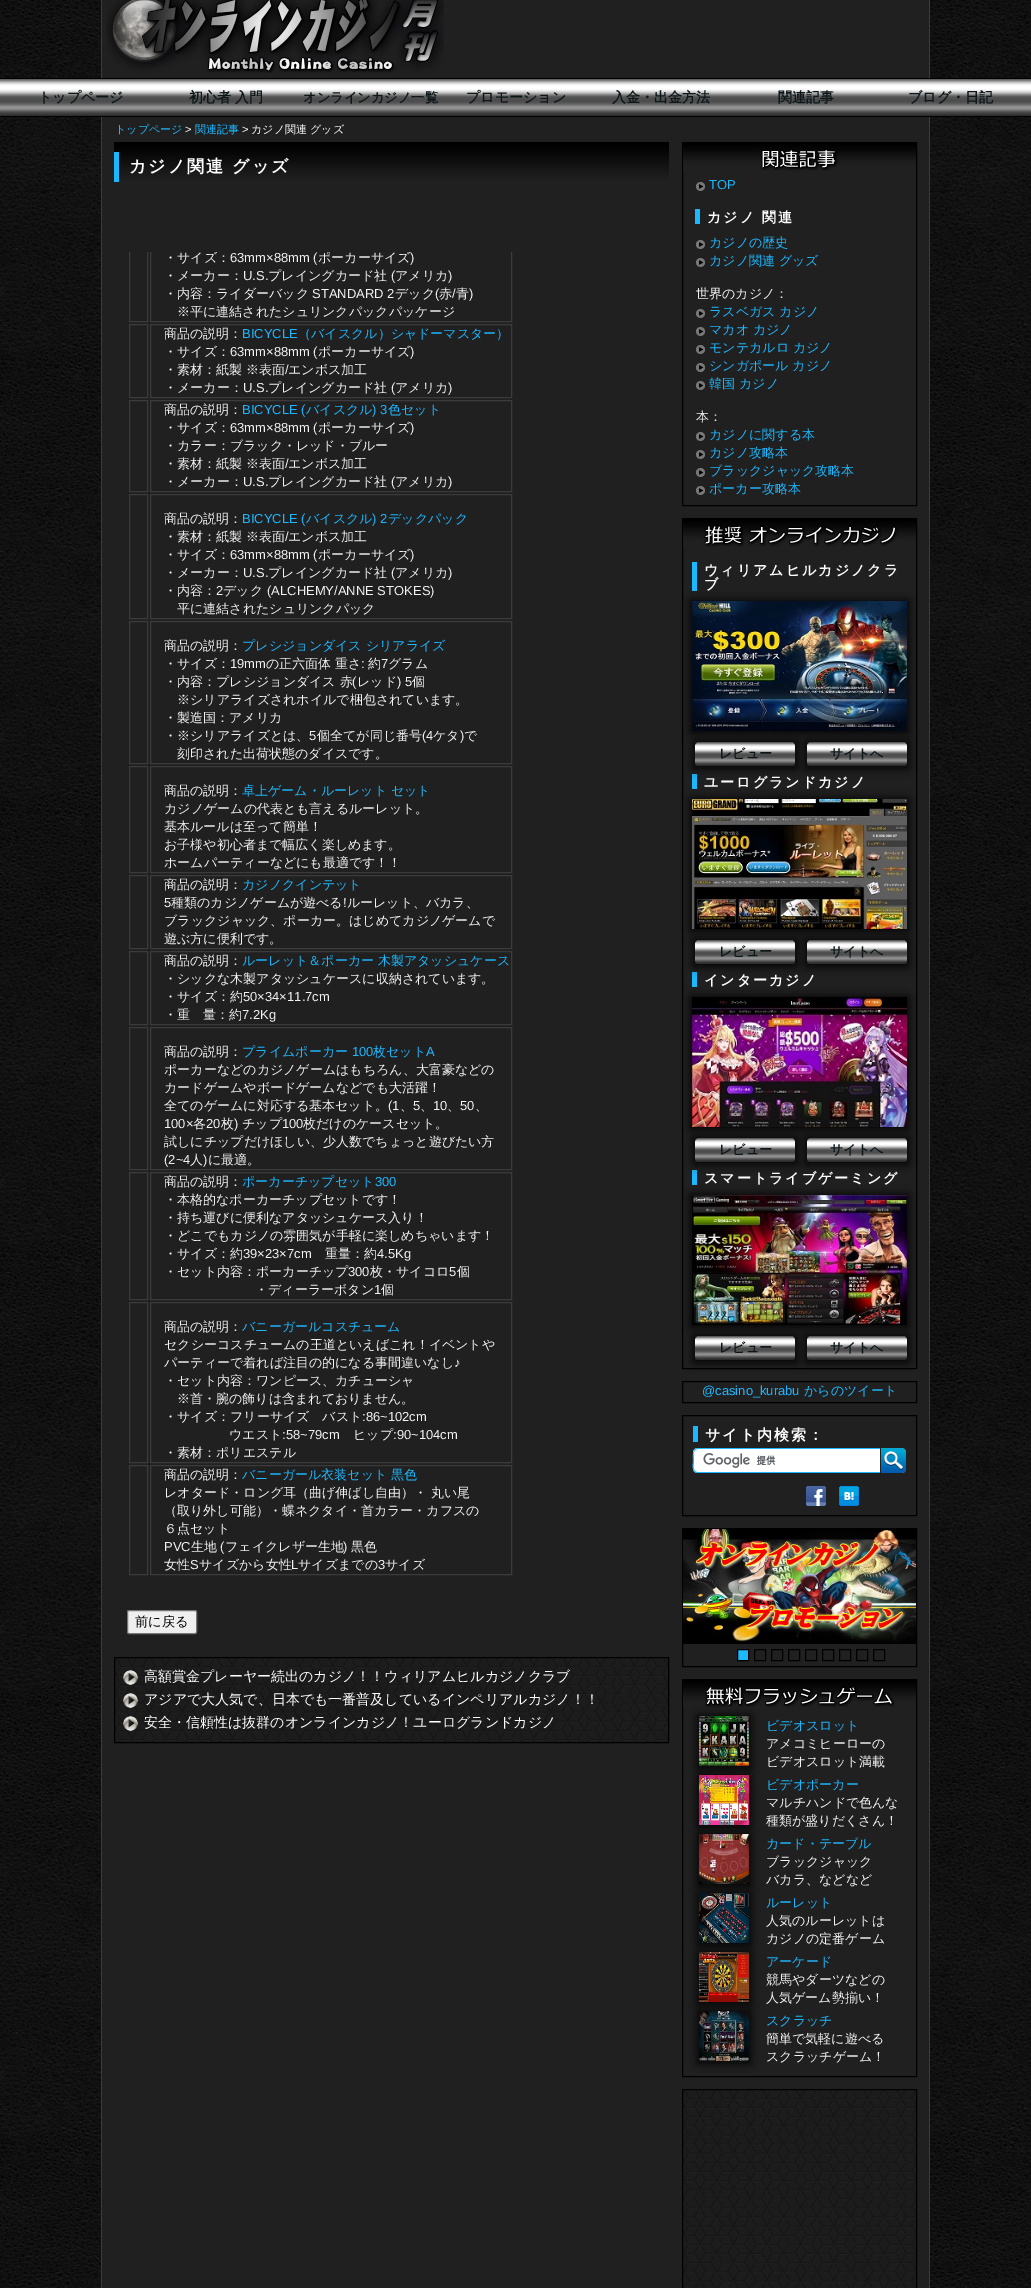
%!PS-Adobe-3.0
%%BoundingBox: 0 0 1031 2288
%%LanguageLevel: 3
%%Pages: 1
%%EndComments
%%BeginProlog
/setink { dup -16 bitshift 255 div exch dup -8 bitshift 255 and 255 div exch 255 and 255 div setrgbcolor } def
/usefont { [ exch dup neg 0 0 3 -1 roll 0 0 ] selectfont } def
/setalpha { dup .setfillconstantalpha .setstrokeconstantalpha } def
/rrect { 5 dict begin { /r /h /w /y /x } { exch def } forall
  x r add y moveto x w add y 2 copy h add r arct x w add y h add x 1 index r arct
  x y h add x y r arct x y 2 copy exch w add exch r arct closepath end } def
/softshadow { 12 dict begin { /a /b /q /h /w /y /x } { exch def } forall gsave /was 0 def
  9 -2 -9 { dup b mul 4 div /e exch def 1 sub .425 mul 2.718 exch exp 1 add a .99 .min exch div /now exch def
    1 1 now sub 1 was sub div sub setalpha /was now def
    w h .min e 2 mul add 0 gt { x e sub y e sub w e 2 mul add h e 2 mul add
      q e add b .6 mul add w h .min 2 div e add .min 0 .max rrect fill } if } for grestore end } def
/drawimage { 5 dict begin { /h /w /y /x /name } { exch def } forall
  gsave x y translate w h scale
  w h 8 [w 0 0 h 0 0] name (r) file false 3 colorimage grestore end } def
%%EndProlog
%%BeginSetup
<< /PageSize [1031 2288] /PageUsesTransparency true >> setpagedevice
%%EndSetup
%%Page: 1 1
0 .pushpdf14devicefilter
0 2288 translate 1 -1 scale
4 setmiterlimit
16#FFFFFF setink
0 0 1031 2288 rectfill
(img1.raw) 0 0 1031 2288 drawimage
(img2.raw) 0 78 1031 39 drawimage
[
    [102 0 827 78 16#202020]
    [929 0 1 78 16#3B3B3B]
    [101 0 1 78 16#3B3B3B]
] { aload pop setink rectfill } forall
(img3.raw) 106 0 338 73 drawimage
/WenQuanYiZenHei-Bold 14 usefont
16#0D171A setink
38 102 moveto (トップページ) show
189 102 moveto (初心者 入門) show
/WenQuanYiZenHei-Bold 13.25 usefont
303 102 moveto (オンラインカジノ一覧) show
/WenQuanYiZenHei-Bold 14 usefont
[
    [(プロモーション) 466 102]
    [(入金・出金方法) 612 102]
    [(関連記事) 778 102]
    [(ブログ・日記) 908 102]
] { aload pop moveto show } forall
[
    [102 117 827 2171 16#202020]
    [929 117 1 2171 16#3B3B3B]
    [101 117 1 2171 16#3B3B3B]
] { aload pop setink rectfill } forall
/WenQuanYiZenHei-Medium 11 usefont
16#1DB7FF setink
115 133 moveto (トップページ) show
/LiberationSans-Regular 11 usefont
16#FFFFFF setink
185 133 moveto (>) show
/WenQuanYiZenHei-Medium 11 usefont
16#1DB7FF setink
195 133 moveto (関連記事) show
/LiberationSans-Regular 11 usefont
16#FFFFFF setink
242 133 moveto (>) show
/WenQuanYiZenHei-Medium 11 usefont
251 133 moveto (カジノ関連 グッズ) show
16#3B3B3B setink
129.5 197.5 18 124 rectstroke
150.5 197.5 361 124 rectstroke
/WenQuanYiZenHei-Medium 13 usefont
16#F2F2F2 setink
164 262 moveto (・サイズ：) show
318 262 moveto (ポーカーサイズ) show
(img4.raw) 114 142 555 110 drawimage
16#1DB7FF setink
114 152 5 30 rectfill
/WenQuanYiZenHei-Bold 17 usefont
16#FFFFFF setink
129 172 moveto 2 0 (カジノ関連 グッズ) ashow
/LiberationSans-Regular 13 usefont
16#F2F2F2 setink
230 262 moveto (63mm×88mm \() show
410 262 moveto (\)) show
/WenQuanYiZenHei-Medium 13 usefont
164 280 moveto (・メーカー：) show
/LiberationSans-Regular 13 usefont
243 280 moveto (U.S.) show
/WenQuanYiZenHei-Medium 13 usefont
268 280 moveto (プレイングカード社) show
/LiberationSans-Regular 13 usefont
391 280 moveto (\() show
/WenQuanYiZenHei-Medium 13 usefont
395 280 moveto (アメリカ) show
/LiberationSans-Regular 13 usefont
448 280 moveto (\)) show
/WenQuanYiZenHei-Medium 13 usefont
164 298 moveto (・内容：ライダーバック) show
/LiberationSans-Regular 13 usefont
312 298 moveto (STANDARD 2) show
/WenQuanYiZenHei-Medium 13 usefont
395 298 moveto (デック) show
/LiberationSans-Regular 13 usefont
435 298 moveto (\() show
/WenQuanYiZenHei-Medium 13 usefont
439 298 moveto (赤) show
/LiberationSans-Regular 13 usefont
452 298 moveto (/) show
/WenQuanYiZenHei-Medium 13 usefont
456 298 moveto (青) show
/LiberationSans-Regular 13 usefont
469 298 moveto (\)) show
/WenQuanYiZenHei-Medium 13 usefont
177 316 moveto (※平に連結されたシュリンクパックパッケージ) show
16#3B3B3B setink
129.5 324.5 18 73 rectstroke
150.5 324.5 361 73 rectstroke
16#F2F2F2 setink
164 338 moveto (商品の説明：) show
/LiberationSans-Regular 13 usefont
16#1DB7FF setink
242 338 moveto (BICYCLE) show
/WenQuanYiZenHei-Medium 13 usefont
298 338 moveto (（バイスクル）シャドーマスター）) show
16#F2F2F2 setink
164 356 moveto (・サイズ：) show
/LiberationSans-Regular 13 usefont
230 356 moveto (63mm×88mm \() show
/WenQuanYiZenHei-Medium 13 usefont
318 356 moveto (ポーカーサイズ) show
/LiberationSans-Regular 13 usefont
410 356 moveto (\)) show
/WenQuanYiZenHei-Medium 13 usefont
164 374 moveto (・素材：紙製 ※表面) show
/LiberationSans-Regular 13 usefont
285 374 moveto (/) show
/WenQuanYiZenHei-Medium 13 usefont
288 374 moveto (エンボス加工) show
164 392 moveto (・メーカー：) show
/LiberationSans-Regular 13 usefont
243 392 moveto (U.S.) show
/WenQuanYiZenHei-Medium 13 usefont
268 392 moveto (プレイングカード社) show
/LiberationSans-Regular 13 usefont
391 392 moveto (\() show
/WenQuanYiZenHei-Medium 13 usefont
395 392 moveto (アメリカ) show
/LiberationSans-Regular 13 usefont
448 392 moveto (\)) show
16#3B3B3B setink
129.5 400.5 18 91 rectstroke
150.5 400.5 361 91 rectstroke
/WenQuanYiZenHei-Medium 13 usefont
16#F2F2F2 setink
164 414 moveto (商品の説明：) show
/LiberationSans-Regular 13 usefont
16#1DB7FF setink
242 414 moveto (BICYCLE \() show
/WenQuanYiZenHei-Medium 13 usefont
306 414 moveto (バイスクル) show
/LiberationSans-Regular 13 usefont
372 414 moveto (\) 3) show
/WenQuanYiZenHei-Medium 13 usefont
388 414 moveto (色セット) show
16#F2F2F2 setink
164 432 moveto (・サイズ：) show
/LiberationSans-Regular 13 usefont
230 432 moveto (63mm×88mm \() show
/WenQuanYiZenHei-Medium 13 usefont
318 432 moveto (ポーカーサイズ) show
/LiberationSans-Regular 13 usefont
410 432 moveto (\)) show
/WenQuanYiZenHei-Medium 13 usefont
164 450 moveto (・カラー：ブラック・レッド・ブルー) show
164 468 moveto (・素材：紙製 ※表面) show
/LiberationSans-Regular 13 usefont
285 468 moveto (/) show
/WenQuanYiZenHei-Medium 13 usefont
288 468 moveto (エンボス加工) show
164 486 moveto (・メーカー：) show
/LiberationSans-Regular 13 usefont
243 486 moveto (U.S.) show
/WenQuanYiZenHei-Medium 13 usefont
268 486 moveto (プレイングカード社) show
/LiberationSans-Regular 13 usefont
391 486 moveto (\() show
/WenQuanYiZenHei-Medium 13 usefont
395 486 moveto (アメリカ) show
/LiberationSans-Regular 13 usefont
448 486 moveto (\)) show
16#3B3B3B setink
129.5 494.5 18 124 rectstroke
150.5 494.5 361 124 rectstroke
/WenQuanYiZenHei-Medium 13 usefont
16#F2F2F2 setink
164 523 moveto (商品の説明：) show
/LiberationSans-Regular 13 usefont
16#1DB7FF setink
242 523 moveto (BICYCLE \() show
/WenQuanYiZenHei-Medium 13 usefont
306 523 moveto (バイスクル) show
/LiberationSans-Regular 13 usefont
372 523 moveto (\) 2) show
/WenQuanYiZenHei-Medium 13 usefont
388 523 moveto (デックパック) show
16#F2F2F2 setink
164 541 moveto (・素材：紙製 ※表面) show
/LiberationSans-Regular 13 usefont
285 541 moveto (/) show
/WenQuanYiZenHei-Medium 13 usefont
288 541 moveto (エンボス加工) show
164 559 moveto (・サイズ：) show
/LiberationSans-Regular 13 usefont
230 559 moveto (63mm×88mm \() show
/WenQuanYiZenHei-Medium 13 usefont
318 559 moveto (ポーカーサイズ) show
/LiberationSans-Regular 13 usefont
410 559 moveto (\)) show
/WenQuanYiZenHei-Medium 13 usefont
164 577 moveto (・メーカー：) show
/LiberationSans-Regular 13 usefont
243 577 moveto (U.S.) show
/WenQuanYiZenHei-Medium 13 usefont
268 577 moveto (プレイングカード社) show
/LiberationSans-Regular 13 usefont
391 577 moveto (\() show
/WenQuanYiZenHei-Medium 13 usefont
395 577 moveto (アメリカ) show
/LiberationSans-Regular 13 usefont
448 577 moveto (\)) show
/WenQuanYiZenHei-Medium 13 usefont
164 595 moveto (・内容：) show
/LiberationSans-Regular 13 usefont
216 595 moveto (2) show
/WenQuanYiZenHei-Medium 13 usefont
223 595 moveto (デック) show
/LiberationSans-Regular 13 usefont
267 595 moveto (\(ALCHEMY/ANNE STOKES\)) show
/WenQuanYiZenHei-Medium 13 usefont
177 613 moveto (平に連結されたシュリンクパック) show
16#3B3B3B setink
129.5 621.5 18 142 rectstroke
150.5 621.5 361 142 rectstroke
16#F2F2F2 setink
164 650 moveto (商品の説明：) show
16#1DB7FF setink
242 650 moveto (プレシジョンダイス シリアライズ) show
16#F2F2F2 setink
164 668 moveto (・サイズ：) show
/LiberationSans-Regular 13 usefont
230 668 moveto (19mm) show
/WenQuanYiZenHei-Medium 13 usefont
266 668 moveto (の正六面体 重さ) show
/LiberationSans-Regular 13 usefont
361 668 moveto (:) show
/WenQuanYiZenHei-Medium 13 usefont
368 668 moveto (約) show
/LiberationSans-Regular 13 usefont
381 668 moveto (7) show
/WenQuanYiZenHei-Medium 13 usefont
388 668 moveto (グラム) show
164 686 moveto (・内容：プレシジョンダイス 赤) show
/LiberationSans-Regular 13 usefont
352 686 moveto (\() show
/WenQuanYiZenHei-Medium 13 usefont
357 686 moveto (レッド) show
/LiberationSans-Regular 13 usefont
397 686 moveto (\) 5) show
/WenQuanYiZenHei-Medium 13 usefont
[
    [(個) 412 686]
    [(※シリアライズされホイルで梱包されています。) 177 704]
    [(・製造国：アメリカ) 164 722]
    [(・※シリアライズとは、) 164 740]
] { aload pop moveto show } forall
/LiberationSans-Regular 13 usefont
309 740 moveto (5) show
/WenQuanYiZenHei-Medium 13 usefont
317 740 moveto (個全てが同じ番号) show
/LiberationSans-Regular 13 usefont
422 740 moveto (\(4) show
/WenQuanYiZenHei-Medium 13 usefont
433 740 moveto (ケタ) show
/LiberationSans-Regular 13 usefont
460 740 moveto (\)) show
/WenQuanYiZenHei-Medium 13 usefont
464 740 moveto (で) show
177 758 moveto (刻印された出荷状態のダイスです。) show
16#3B3B3B setink
129.5 766.5 18 106 rectstroke
150.5 766.5 361 106 rectstroke
16#F2F2F2 setink
164 795 moveto (商品の説明：) show
16#1DB7FF setink
242 795 moveto (卓上ゲーム・ルーレット セット) show
16#F2F2F2 setink
[
    [(カジノゲームの代表とも言えるルーレット。) 164 813]
    [(基本ルールは至って簡単！) 164 831]
    [(お子様や初心者まで幅広く楽しめます。) 164 849]
    [(ホームパーティーなどにも最適です！！) 164 867]
] { aload pop moveto show } forall
16#3B3B3B setink
129.5 875.5 18 73 rectstroke
150.5 875.5 361 73 rectstroke
16#F2F2F2 setink
164 889 moveto (商品の説明：) show
16#1DB7FF setink
242 889 moveto (カジノクインテット) show
/LiberationSans-Regular 13 usefont
16#F2F2F2 setink
164 907 moveto (5) show
/WenQuanYiZenHei-Medium 13 usefont
171 907 moveto (種類のカジノゲームが遊べる ルーレット、バカラ、) show
/LiberationSans-Regular 13 usefont
343 907 moveto (!) show
/WenQuanYiZenHei-Medium 13 usefont
164 925 moveto (ブラックジャック、ポーカー。はじめてカジノゲームで) show
164 943 moveto (遊ぶ方に便利です。) show
16#3B3B3B setink
129.5 951.5 18 73 rectstroke
150.5 951.5 361 73 rectstroke
16#F2F2F2 setink
164 965 moveto (商品の説明：) show
16#1DB7FF setink
242 965 moveto (ルーレット＆ポーカー 木製アタッシュケース) show
16#F2F2F2 setink
164 983 moveto (・シックな木製アタッシュケースに収納されています。) show
164 1001 moveto (・サイズ：約) show
/LiberationSans-Regular 13 usefont
243 1001 moveto (50×34×11.7cm) show
/WenQuanYiZenHei-Medium 13 usefont
164 1019 moveto (・重　量：約) show
/LiberationSans-Regular 13 usefont
242 1019 moveto (7.2Kg) show
16#3B3B3B setink
129.5 1027.5 18 142 rectstroke
150.5 1027.5 361 142 rectstroke
/WenQuanYiZenHei-Medium 13 usefont
16#F2F2F2 setink
164 1056 moveto (商品の説明：) show
16#1DB7FF setink
242 1056 moveto (プライムポーカー) show
/LiberationSans-Regular 13 usefont
352 1056 moveto (100) show
/WenQuanYiZenHei-Medium 13 usefont
373 1056 moveto (枚セット) show
/LiberationSans-Regular 13 usefont
426 1056 moveto (A) show
/WenQuanYiZenHei-Medium 13 usefont
16#F2F2F2 setink
[
    [(ポーカーなどのカジノゲームはもちろん、大富豪などの) 164 1074]
    [(カードゲームやボードゲームなどでも大活躍！) 164 1092]
    [(全てのゲームに対応する基本セット。) 164 1110]
] { aload pop moveto show } forall
/LiberationSans-Regular 13 usefont
388 1110 moveto (\(1) show
/WenQuanYiZenHei-Medium 13 usefont
400 1110 moveto (、) show
/LiberationSans-Regular 13 usefont
413 1110 moveto (5) show
/WenQuanYiZenHei-Medium 13 usefont
420 1110 moveto (、) show
/LiberationSans-Regular 13 usefont
433 1110 moveto (10) show
/WenQuanYiZenHei-Medium 13 usefont
447 1110 moveto (、) show
/LiberationSans-Regular 13 usefont
460 1110 moveto (50) show
/WenQuanYiZenHei-Medium 13 usefont
475 1110 moveto (、) show
/LiberationSans-Regular 13 usefont
164 1128 moveto (100×) show
/WenQuanYiZenHei-Medium 13 usefont
193 1128 moveto (各) show
/LiberationSans-Regular 13 usefont
206 1128 moveto (20) show
/WenQuanYiZenHei-Medium 13 usefont
221 1128 moveto (枚) show
/LiberationSans-Regular 13 usefont
234 1128 moveto (\)) show
/WenQuanYiZenHei-Medium 13 usefont
242 1128 moveto (チップ) show
/LiberationSans-Regular 13 usefont
282 1128 moveto (100) show
/WenQuanYiZenHei-Medium 13 usefont
303 1128 moveto (枚だけのケースセット。) show
164 1146 moveto (試しにチップだけほしい、少人数でちょっと遊びたい方) show
/LiberationSans-Regular 13 usefont
164 1164 moveto (\(2~4) show
/WenQuanYiZenHei-Medium 13 usefont
190 1164 moveto (人) show
/LiberationSans-Regular 13 usefont
203 1164 moveto (\)) show
/WenQuanYiZenHei-Medium 13 usefont
208 1164 moveto (に最適。) show
16#3B3B3B setink
129.5 1172.5 18 127 rectstroke
150.5 1172.5 361 127 rectstroke
16#F2F2F2 setink
164 1186 moveto (商品の説明：) show
16#1DB7FF setink
242 1186 moveto (ポーカーチップセット) show
/LiberationSans-Regular 13 usefont
375 1186 moveto (300) show
/WenQuanYiZenHei-Medium 13 usefont
16#F2F2F2 setink
[
    [(・本格的なポーカーチップセットです！) 164 1204]
    [(・持ち運びに便利なアタッシュケース入り！) 164 1222]
    [(・どこでもカジノの雰囲気が手軽に楽しめちゃいます！) 164 1240]
    [(・サイズ：約) 164 1258]
] { aload pop moveto show } forall
/LiberationSans-Regular 13 usefont
243 1258 moveto (39×23×7cm) show
/WenQuanYiZenHei-Medium 13 usefont
325 1258 moveto (重量：約) show
/LiberationSans-Regular 13 usefont
377 1258 moveto (4.5Kg) show
/WenQuanYiZenHei-Medium 13 usefont
164 1276 moveto (・セット内容：ポーカーチップ) show
/LiberationSans-Regular 13 usefont
348 1276 moveto (300) show
/WenQuanYiZenHei-Medium 13 usefont
370 1276 moveto (枚・サイコロ) show
/LiberationSans-Regular 13 usefont
449 1276 moveto (5) show
/WenQuanYiZenHei-Medium 13 usefont
457 1276 moveto (個) show
255 1294 moveto (・ディーラーボタン) show
/LiberationSans-Regular 13 usefont
374 1294 moveto (1) show
/WenQuanYiZenHei-Medium 13 usefont
381 1294 moveto (個) show
16#3B3B3B setink
129.5 1302.5 18 160 rectstroke
150.5 1302.5 361 160 rectstroke
16#F2F2F2 setink
164 1331 moveto (商品の説明：) show
16#1DB7FF setink
242 1331 moveto (バニーガールコスチューム) show
16#F2F2F2 setink
164 1349 moveto (セクシーコスチュームの王道といえばこれ！イベントや) show
164 1367 moveto (パーティーで着れば注目の的になる事間違いなし) show
/LiberationSans-Regular 13 usefont
454 1367 moveto (♪) show
/WenQuanYiZenHei-Medium 13 usefont
[
    [(・セット内容：ワンピース、カチューシャ) 164 1385]
    [(※首・腕の飾りは含まれておりません。) 177 1403]
    [(・サイズ：フリーサイズ　バスト) 164 1421]
] { aload pop moveto show } forall
/LiberationSans-Regular 13 usefont
362 1421 moveto (:86~102cm) show
/WenQuanYiZenHei-Medium 13 usefont
229 1439 moveto (ウエスト) show
/LiberationSans-Regular 13 usefont
282 1439 moveto (:58~79cm) show
/WenQuanYiZenHei-Medium 13 usefont
353 1439 moveto (ヒップ) show
/LiberationSans-Regular 13 usefont
393 1439 moveto (:90~104cm) show
/WenQuanYiZenHei-Medium 13 usefont
164 1457 moveto (・素材：ポリエステル) show
16#3B3B3B setink
129.5 1465.5 18 109 rectstroke
150.5 1465.5 361 109 rectstroke
16#F2F2F2 setink
164 1479 moveto (商品の説明：) show
16#1DB7FF setink
242 1479 moveto (バニーガール衣装セット 黒色) show
16#F2F2F2 setink
[
    [(レオタード・ロング耳（曲げ伸ばし自由）・ 丸い尾) 164 1497]
    [(（取り外し可能）・蝶ネクタイ・首カラー・カフスの) 164 1515]
    [(６点セット) 164 1533]
] { aload pop moveto show } forall
/LiberationSans-Regular 13 usefont
164 1551 moveto (PVC) show
/WenQuanYiZenHei-Medium 13 usefont
191 1551 moveto (生地) show
/LiberationSans-Regular 13 usefont
220 1551 moveto (\() show
/WenQuanYiZenHei-Medium 13 usefont
225 1551 moveto (フェイクレザー生地) show
/LiberationSans-Regular 13 usefont
343 1551 moveto (\)) show
/WenQuanYiZenHei-Medium 13 usefont
351 1551 moveto (黒色) show
164 1569 moveto (女性) show
/LiberationSans-Regular 13 usefont
190 1569 moveto (S) show
/WenQuanYiZenHei-Medium 13 usefont
199 1569 moveto (サイズから女性) show
/LiberationSans-Regular 13 usefont
291 1569 moveto (L) show
/WenQuanYiZenHei-Medium 13 usefont
298 1569 moveto (サイズまでの) show
/LiberationSans-Regular 13 usefont
378 1569 moveto (3) show
/WenQuanYiZenHei-Medium 13 usefont
385 1569 moveto (サイズ) show
16#EFEFEF setink
127.5 1610.5 69 23 1.5 rrect gsave fill grestore
16#767676 setink
stroke
/WenQuanYiZenHei-Medium 13.25 usefont
16#000000 setink
135 1626 moveto (前に戻る) show
(img5.raw) 115 1658 553 84 drawimage
114.5 1657.5 554 85 rectstroke
(img6.raw) 123 1670 15 15 drawimage
/WenQuanYiZenHei-Medium 14 usefont
16#FFFFFF setink
144 1681 moveto (高額賞金プレーヤー続出のカジノ！！ウィリアムヒルカジノクラブ) show
(img7.raw) 123 1693 15 15 drawimage
144 1704 moveto (アジアで大人気で、日本でも一番普及しているインペリアルカジノ！！) show
(img8.raw) 123 1716 15 15 drawimage
144 1727 moveto (安全・信頼性は抜群のオンラインカジノ！ユーログランドカジノ) show
16#000000 setink
682.5 142.5 234 363 rectstroke
(img9.raw) 683 143 233 28 drawimage
(img10.raw) 696 182 9 9 drawimage
/LiberationSans-Regular 13 usefont
16#1DB7FF setink
709 189 moveto (TOP) show
695 209 5 15 rectfill
/WenQuanYiZenHei-Bold 14 usefont
16#FFFFFF setink
707 222 moveto 2 0 (カジノ 関連) ashow
(img10.raw) 696 240 9 9 drawimage
/WenQuanYiZenHei-Medium 13 usefont
16#1DB7FF setink
709 247 moveto (カジノの歴史) show
(img10.raw) 696 258 9 9 drawimage
709 265 moveto (カジノ関連 グッズ) show
16#F2F2F2 setink
696 298 moveto (世界のカジノ：) show
(img10.raw) 696 309 9 9 drawimage
16#1DB7FF setink
709 316 moveto (ラスベガス カジノ) show
(img10.raw) 696 327 9 9 drawimage
709 334 moveto (マカオ カジノ) show
(img10.raw) 696 345 9 9 drawimage
709 352 moveto (モンテカルロ カジノ) show
(img10.raw) 696 363 9 9 drawimage
709 370 moveto (シンガポール カジノ) show
(img10.raw) 696 381 9 9 drawimage
709 388 moveto (韓国 カジノ) show
16#F2F2F2 setink
696 421 moveto (本：) show
(img10.raw) 696 432 9 9 drawimage
16#1DB7FF setink
709 439 moveto (カジノに関する本) show
(img10.raw) 696 450 9 9 drawimage
709 457 moveto (カジノ攻略本) show
(img10.raw) 696 468 9 9 drawimage
709 475 moveto (ブラックジャック攻略本) show
(img10.raw) 696 486 9 9 drawimage
709 493 moveto (ポーカー攻略本) show
16#000000 setink
682.5 518.5 234 850 rectstroke
(img11.raw) 683 519 233 28 drawimage
16#1DB7FF setink
692 562 5 29 rectfill
/WenQuanYiZenHei-Bold 14 usefont
16#FFFFFF setink
704 575 moveto 2 0 (ウィリアムヒルカジノクラ) ashow
704 589 moveto 2 0 (ブ) ashow
16#1DB7FF setink
692 774 5 15 rectfill
16#000000 setink
694 742 102 26 0 5 1 softshadow
(img13.raw) 695 742 100 24 drawimage
806 742 102 26 0 5 1 softshadow
(img13.raw) 807 742 100 24 drawimage
691 601 217 132 0 5 1 softshadow
(img12.raw) 692 601 215 130 drawimage
/WenQuanYiZenHei-Bold 13 usefont
16#0D171A setink
719 758 moveto (レビュー) show
830 758 moveto (サイトへ) show
/WenQuanYiZenHei-Bold 14 usefont
16#FFFFFF setink
704 787 moveto 2 0 (ユーログランドカジノ) ashow
16#1DB7FF setink
692 972 5 15 rectfill
16#000000 setink
694 940 102 26 0 5 1 softshadow
(img13.raw) 695 940 100 24 drawimage
806 940 102 26 0 5 1 softshadow
(img13.raw) 807 940 100 24 drawimage
691 799 217 132 0 5 1 softshadow
(img14.raw) 692 799 215 130 drawimage
/WenQuanYiZenHei-Bold 13 usefont
16#0D171A setink
719 956 moveto (レビュー) show
830 956 moveto (サイトへ) show
/WenQuanYiZenHei-Bold 14 usefont
16#FFFFFF setink
704 985 moveto 2 0 (インターカジノ) ashow
16#1DB7FF setink
692 1170 5 15 rectfill
16#000000 setink
694 1138 102 26 0 5 1 softshadow
(img13.raw) 695 1138 100 24 drawimage
806 1138 102 26 0 5 1 softshadow
(img13.raw) 807 1138 100 24 drawimage
691 997 217 132 0 5 1 softshadow
(img15.raw) 692 997 215 130 drawimage
/WenQuanYiZenHei-Bold 13 usefont
16#0D171A setink
719 1154 moveto (レビュー) show
830 1154 moveto (サイトへ) show
/WenQuanYiZenHei-Bold 14 usefont
16#FFFFFF setink
704 1183 moveto 2 0 (スマートライブゲーミング) ashow
16#000000 setink
694 1336 102 26 0 5 1 softshadow
(img13.raw) 695 1336 100 24 drawimage
806 1336 102 26 0 5 1 softshadow
(img13.raw) 807 1336 100 24 drawimage
691 1195 217 132 0 5 1 softshadow
(img16.raw) 692 1195 215 130 drawimage
/WenQuanYiZenHei-Bold 13 usefont
16#0D171A setink
719 1352 moveto (レビュー) show
830 1352 moveto (サイトへ) show
16#000000 setink
682.5 1381.5 234 21 rectstroke
/LiberationSans-Regular 13 usefont
16#1DB7FF setink
702 1395 moveto (@casino_kurabu) show
/WenQuanYiZenHei-Medium 13 usefont
804 1395 moveto (からのツイート) show
16#000000 setink
682.5 1415.5 234 100 rectstroke
16#1DB7FF setink
693 1426 5 16 rectfill
/WenQuanYiZenHei-Bold 15 usefont
16#FFFFFF setink
705 1440 moveto 2 0 (サイト内検索：) ashow
698 1448 moveto 880 1448 lineto 880 1473 lineto 698 1473 lineto 695 1473 693 1471 693 1468 curveto 693 1453 lineto 693 1450 695 1448 698 1448 curveto closepath fill
(img17.raw) 703 1453 73 15 drawimage
16#1DB7FF setink
698 1448 moveto 880 1448 lineto 880 1473 lineto 697 1473 lineto 691 1472 693 1464 693 1460 curveto 693 1456 692 1448 698 1448 curveto closepath 698 1449 moveto 880 1449 lineto 880 1472 lineto 697 1472 lineto 692 1471 694 1464 694 1460 curveto 694 1457 692 1449 698 1449 curveto closepath eofill
(img18.raw) 881 1448 25 25 drawimage
(img19.raw) 806 1486 20 20 drawimage
(img20.raw) 839 1486 20 20 drawimage
16#000000 setink
682.5 1528.5 234 138 rectstroke
(img21.raw) 683 1529 233 115 drawimage
16#1DB7FF setink
737.5 1649.5 moveto 748.5 1649.5 lineto 748.5 1660.5 lineto 737.5 1660.5 lineto closepath gsave fill grestore
16#000000 setink
stroke
754.5 1649.5 11 11 rectstroke
771.5 1649.5 11 11 rectstroke
788.5 1649.5 11 11 rectstroke
805.5 1649.5 11 11 rectstroke
822.5 1649.5 11 11 rectstroke
839.5 1649.5 11 11 rectstroke
856.5 1649.5 11 11 rectstroke
873.5 1649.5 11 11 rectstroke
682.5 1679.5 234 397 rectstroke
(img22.raw) 683 1680 233 27 drawimage
698 1716 52 52 0 5 1 softshadow
(img23.raw) 699 1716 50 50 drawimage
/WenQuanYiZenHei-Medium 13 usefont
16#1DB7FF setink
766 1730 moveto (ビデオスロット) show
16#F2F2F2 setink
766 1748 moveto (アメコミヒーローの) show
766 1766 moveto (ビデオスロット満載) show
16#000000 setink
698 1775 52 52 0 5 1 softshadow
(img24.raw) 699 1775 50 50 drawimage
16#1DB7FF setink
766 1789 moveto (ビデオポーカー) show
16#F2F2F2 setink
766 1807 moveto (マルチハンドで色んな) show
766 1825 moveto (種類が盛りだくさん！) show
16#000000 setink
698 1834 52 52 0 5 1 softshadow
(img25.raw) 699 1834 50 50 drawimage
16#1DB7FF setink
766 1848 moveto (カード・テーブル) show
16#F2F2F2 setink
766 1866 moveto (ブラックジャック) show
766 1884 moveto (バカラ、などなど) show
16#000000 setink
698 1893 52 52 0 5 1 softshadow
(img26.raw) 699 1893 50 50 drawimage
16#1DB7FF setink
766 1907 moveto (ルーレット) show
16#F2F2F2 setink
766 1925 moveto (人気のルーレットは) show
766 1943 moveto (カジノの定番ゲーム) show
16#000000 setink
698 1952 52 52 0 5 1 softshadow
(img27.raw) 699 1952 50 50 drawimage
16#1DB7FF setink
766 1966 moveto (アーケード) show
16#F2F2F2 setink
766 1984 moveto (競馬やダーツなどの) show
766 2002 moveto (人気ゲーム勢揃い！) show
16#000000 setink
698 2011 52 52 0 5 1 softshadow
(img28.raw) 699 2011 50 50 drawimage
16#1DB7FF setink
766 2025 moveto (スクラッチ) show
16#F2F2F2 setink
766 2043 moveto (簡単で気軽に遊べる) show
766 2061 moveto (スクラッチゲーム！) show
(img29.raw) 683 2090 233 198 drawimage
16#000000 setink
682.5 2089.5 234 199 rectstroke
.poppdf14devicefilter showpage
%%EOF
